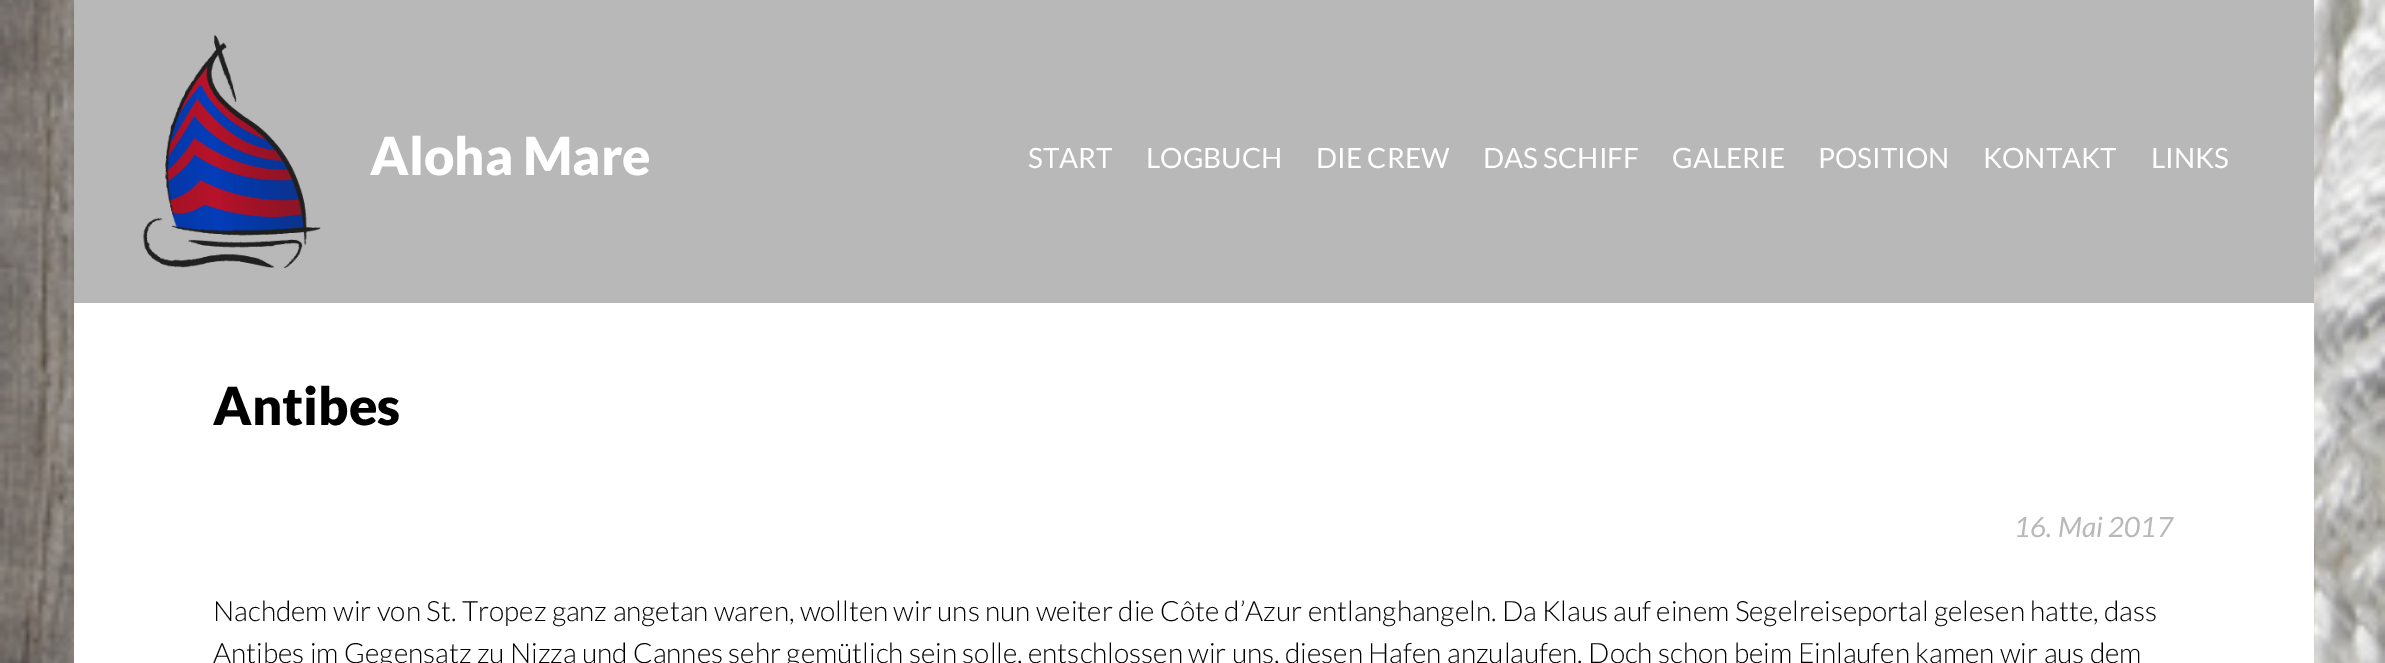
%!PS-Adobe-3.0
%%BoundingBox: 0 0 2385 663
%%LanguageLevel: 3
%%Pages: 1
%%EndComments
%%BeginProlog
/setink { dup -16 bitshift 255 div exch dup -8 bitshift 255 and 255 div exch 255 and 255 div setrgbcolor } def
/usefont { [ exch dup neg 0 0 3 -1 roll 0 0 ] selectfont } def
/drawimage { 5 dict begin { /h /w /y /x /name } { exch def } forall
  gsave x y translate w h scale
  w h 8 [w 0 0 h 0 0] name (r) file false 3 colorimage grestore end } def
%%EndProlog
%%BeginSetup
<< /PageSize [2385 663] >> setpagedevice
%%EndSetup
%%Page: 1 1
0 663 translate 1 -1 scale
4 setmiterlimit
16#FFFFFF setink
0 0 2385 663 rectfill
(img1.raw) 0 0 2385 663 drawimage
16#B8B8B8 setink
74 0 2240 303 rectfill
(img2.raw) 143 35 178 233 drawimage
/Lato-Black 52.5 usefont
16#FFFFFF setink
370 175 moveto (Aloha Mare) show
/Lato-Regular 28 usefont
[
    [(START) 1028 168]
    [(LOGBUCH) 1146 168]
    [(DIE CREW) 1316 168]
    [(DAS SCHIFF) 1483 168]
    [(GALERIE) 1672 168]
    [(POSITION) 1818 168]
    [(KONTAKT) 1983 168]
    [(LINKS) 2151 168]
] { aload pop moveto show } forall
74 303 2240 360 rectfill
/Lato-Black 52.5 usefont
16#000000 setink
213 425 moveto (Antibes) show
/Lato-Italic 28 usefont
16#B8B8B8 setink
2014 537 moveto (16. Mai 2017) show
/Lato-Light 28 usefont
16#000000 setink
213 621 moveto (Nachdem wir von St. Tropez ganz angetan waren, wollten wir uns nun weiter die Côte d’Azur entlanghangeln. Da Klaus auf einem Segelreiseportal gelesen hatte, dass) show
213 663 moveto (Antibes im Gegensatz zu Nizza und Cannes sehr gemütlich sein solle, entschlossen wir uns, diesen Hafen anzulaufen. Doch schon beim Einlaufen kamen wir aus dem) show
showpage
%%EOF
